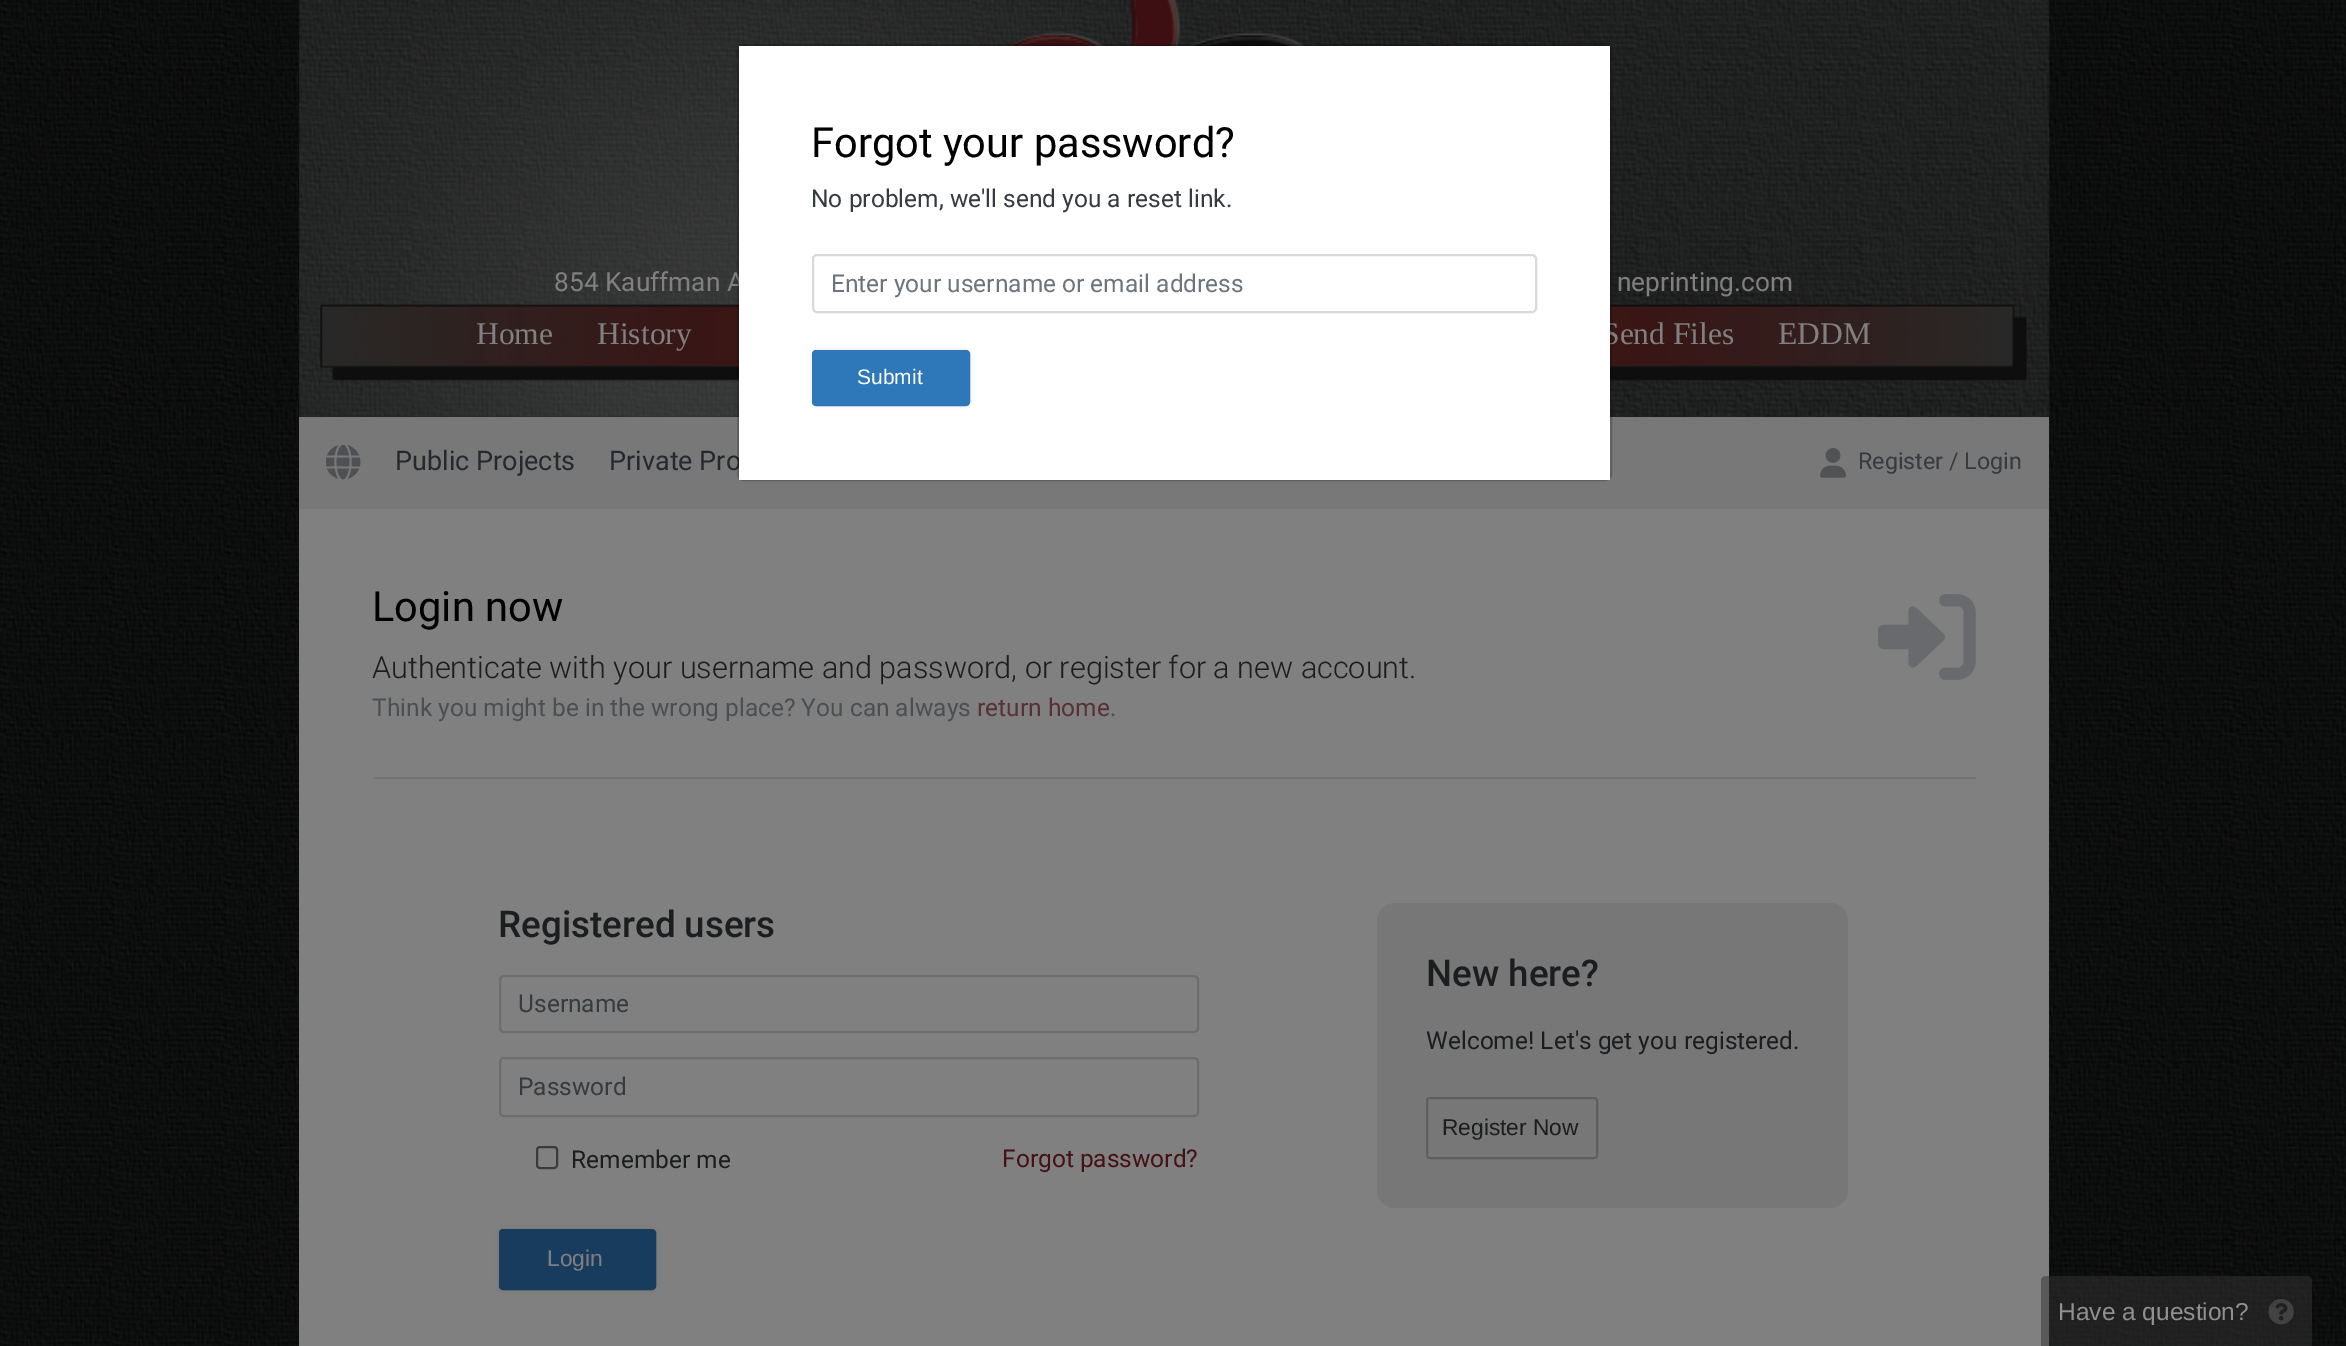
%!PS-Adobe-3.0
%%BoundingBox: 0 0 2346 1346
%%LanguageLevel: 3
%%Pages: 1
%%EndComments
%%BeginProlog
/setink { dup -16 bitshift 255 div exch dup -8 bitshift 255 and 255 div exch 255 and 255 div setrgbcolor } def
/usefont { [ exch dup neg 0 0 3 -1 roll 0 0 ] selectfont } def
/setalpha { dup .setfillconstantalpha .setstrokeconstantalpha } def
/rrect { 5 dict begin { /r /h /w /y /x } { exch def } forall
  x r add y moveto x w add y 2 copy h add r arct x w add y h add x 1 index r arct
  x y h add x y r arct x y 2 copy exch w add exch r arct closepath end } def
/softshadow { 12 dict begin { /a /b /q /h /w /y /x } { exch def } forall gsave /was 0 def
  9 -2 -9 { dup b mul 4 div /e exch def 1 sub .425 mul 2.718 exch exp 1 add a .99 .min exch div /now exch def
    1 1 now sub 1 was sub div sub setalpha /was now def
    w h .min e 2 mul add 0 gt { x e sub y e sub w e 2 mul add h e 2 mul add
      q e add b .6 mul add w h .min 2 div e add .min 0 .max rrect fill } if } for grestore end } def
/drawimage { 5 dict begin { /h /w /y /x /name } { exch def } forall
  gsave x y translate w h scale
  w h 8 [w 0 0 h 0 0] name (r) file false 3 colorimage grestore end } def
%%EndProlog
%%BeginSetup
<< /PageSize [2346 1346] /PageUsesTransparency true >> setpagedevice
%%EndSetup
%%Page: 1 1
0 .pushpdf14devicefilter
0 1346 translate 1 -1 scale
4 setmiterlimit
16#FFFFFF setink
0 0 2346 1346 rectfill
(img1.raw) 0 0 2346 1346 drawimage
(img2.raw) 299 0 1751 1346 drawimage
16#808080 setink
299 509 1750 837 rectfill
16#787878 setink
299 417 1750 92 rectfill
/Roboto-Regular 27 usefont
16#25292E setink
609 470 moveto (Private Pro) show
(img6.raw) 299 0 1227 417 drawimage
(img7.raw) 1008 0 298 46 drawimage
/Roboto-Regular 26.25 usefont
16#808080 setink
554 291 moveto (854 Kauffman A) show
(img8.raw) 319 304 1708 77 drawimage
/LiberationSerif-Regular 31.5 usefont
1602 344 moveto (Send Files) show
0.2 setalpha
16#000000 setink
2 setlinewidth
738 45 873 435 6 rrect stroke
1 setalpha
16#FFFFFF setink
739 46 871 434 rectfill
/Roboto-Regular 41.6 usefont
16#000000 setink
811 157 moveto (Forgot your password?) show
/Roboto-Regular 24.5 usefont
16#363B3F setink
811 207 moveto (No problem, we'll send you a reset link.) show
16#D9D9D9 setink
813 255 723 57 4 rrect stroke
16#6C757D setink
831 292 moveto (Enter your username or email address) show
16#000000 setink
812 350 158 56 4 2 0.1 softshadow
16#2E78BA setink
813 351 156 54 3 rrect gsave fill grestore
stroke
/LiberationSans-Regular 21 usefont
16#FFFFFF setink
857 384 moveto (Submit) show
16#737373 setink
373 777 1603 2 rectfill
/Roboto-Regular 41.6 usefont
16#000000 setink
372 621 moveto (Login now) show
(img3.raw) 1878 594 98 86 drawimage
/Roboto-Light 30.6 usefont
16#1C1D1E setink
372 678 moveto (Authenticate with your username and password, or register for a new account.) show
/Roboto-Regular 24.5 usefont
16#4C4F52 setink
372 716 moveto (Think you might be in the wrong place? You can always) show
16#563235 setink
977 716 moveto (return home) show
16#4C4F52 setink
1110 716 moveto (.) show
/Roboto-Medium 36.75 usefont
16#1C1D1E setink
498 937 moveto (Registered users) show
16#6D6D6D setink
500 976 698 56 4 rrect stroke
/Roboto-Regular 24.5 usefont
16#363B3F setink
518 1012 moveto (Username) show
16#6D6D6D setink
500 1058 698 58 4 rrect stroke
16#363B3F setink
518 1095 moveto (Password) show
16#3B3B3B setink
537 1147 20 21 3 rrect stroke
16#1C1D1E setink
571 1168 moveto (Remember me) show
16#441114 setink
1002 1167 moveto (Forgot password?) show
16#000000 setink
499 1229 157 61 4 2 0.1 softshadow
16#173C5D setink
500 1230 155 59 3 rrect gsave fill grestore
stroke
/LiberationSans-Regular 22.75 usefont
16#808080 setink
547 1266 moveto (Login) show
16#777777 setink
1377 903 471 305 18 rrect fill
/Roboto-Medium 36.75 usefont
16#1C1D1E setink
1426 986 moveto (New here?) show
/Roboto-Regular 24.5 usefont
1426 1049 moveto (Welcome! Let's get you registered.) show
16#5E5E5E setink
1427 1098 170 60 3 rrect stroke
/LiberationSans-Regular 22.75 usefont
16#1C1D1E setink
1442 1135 moveto (Register Now) show
(img4.raw) 326 445 35 35 drawimage
/Roboto-Regular 27 usefont
16#25292E setink
395 470 moveto (Public Projects) show
(img5.raw) 1820 448 26 30 drawimage
/Roboto-Regular 23.25 usefont
16#363B3F setink
1858 469 moveto (Register / Login) show
/Roboto-Regular 26.25 usefont
16#808080 setink
1617 291 moveto (neprinting.com) show
/LiberationSerif-Regular 31.5 usefont
[
    [(Home) 476 344]
    [(History) 597 344]
    [(EDDM) 1778 344]
] { aload pop moveto show } forall
0.5 setalpha
16#333333 setink
2046 1276 moveto 2307 1276 lineto 2310 1276 2312 1278 2312 1281 curveto 2312 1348 lineto 2041 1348 lineto 2041 1281 lineto 2041 1278 2043 1276 2046 1276 curveto closepath fill
/LiberationSans-Regular 24.5 usefont
1 setalpha
16#8F908F setink
2058 1320 moveto (Have a question?) show
(img9.raw) 2268 1299 26 26 drawimage
.poppdf14devicefilter showpage
%%EOF
